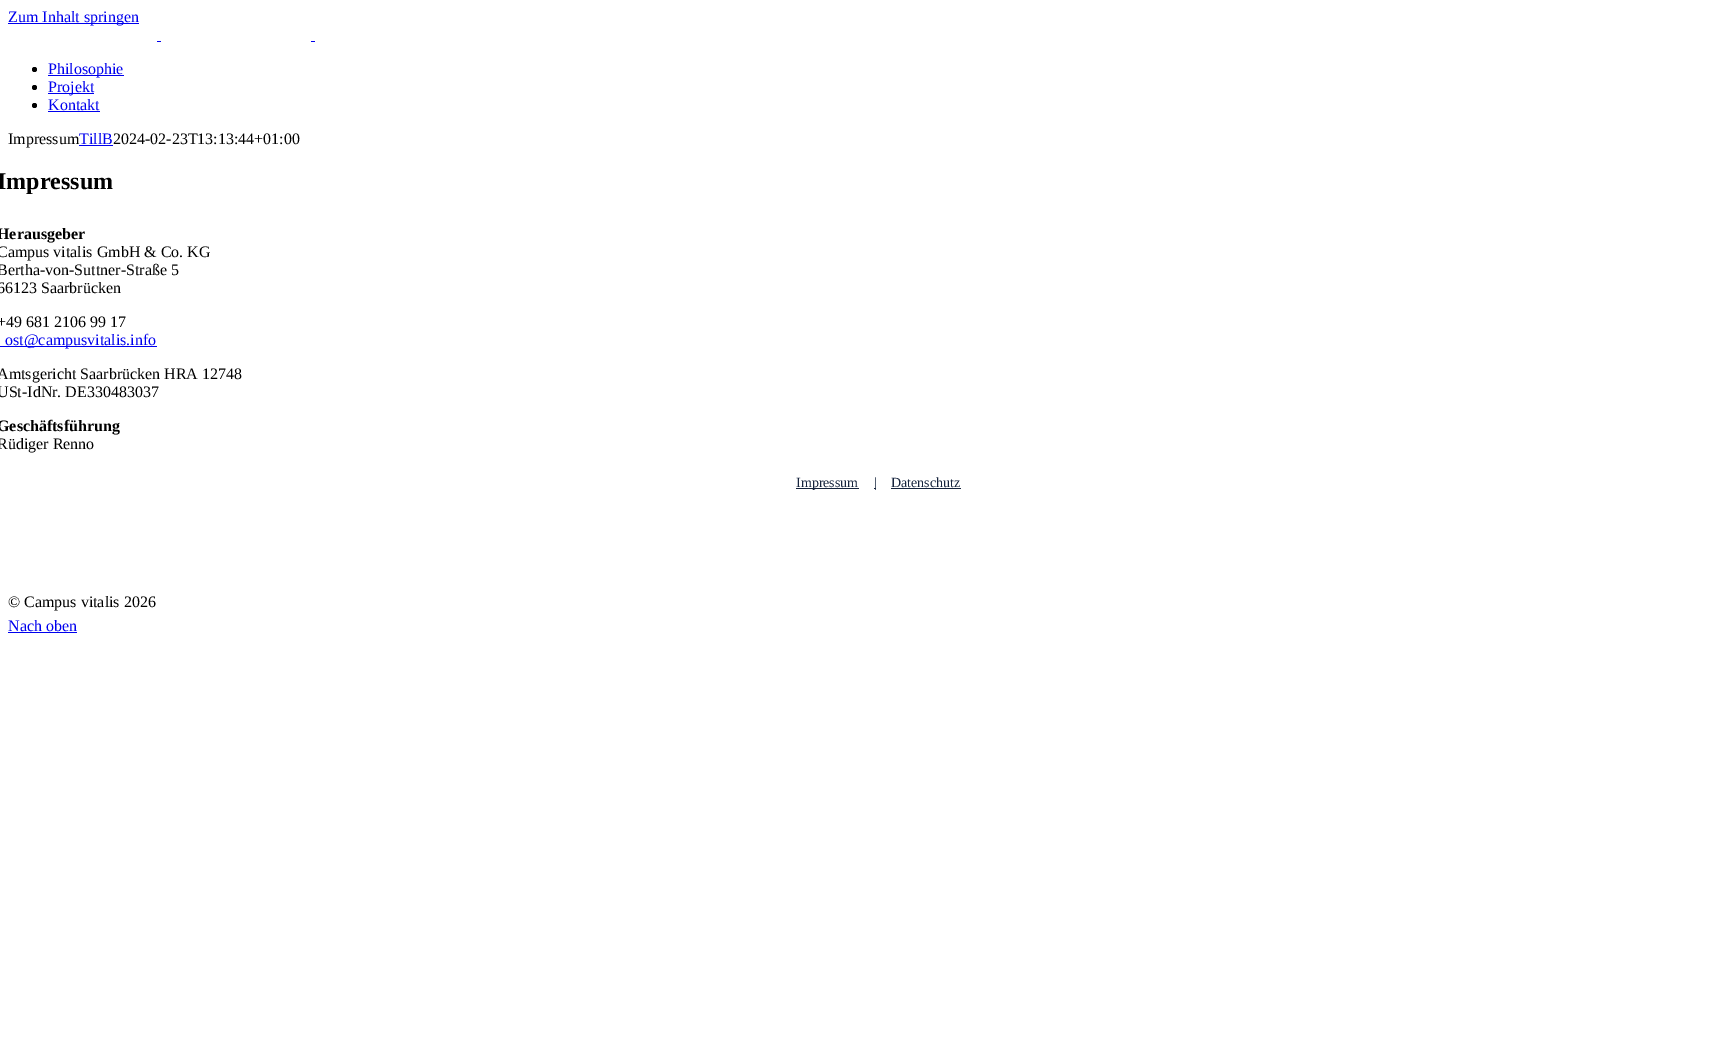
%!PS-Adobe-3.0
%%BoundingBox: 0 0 1717 1040
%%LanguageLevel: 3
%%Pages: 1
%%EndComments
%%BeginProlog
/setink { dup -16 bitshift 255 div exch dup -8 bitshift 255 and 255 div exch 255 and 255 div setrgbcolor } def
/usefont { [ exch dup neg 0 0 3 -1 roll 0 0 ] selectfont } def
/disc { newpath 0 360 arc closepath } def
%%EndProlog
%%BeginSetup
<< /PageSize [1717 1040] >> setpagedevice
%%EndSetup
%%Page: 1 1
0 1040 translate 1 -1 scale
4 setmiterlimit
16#FFFFFF setink
0 0 1717 1040 rectfill
16#0000EE setink
8 23 131 1 rectfill
/LiberationSerif-Regular 16 usefont
8 22 moveto (Zum Inhalt springen) show
157 41 4 1 rectfill
311 41 4 1 rectfill
16#000000 setink
34.5 69.5 2.5 disc fill
16#0000EE setink
48 75 76 1 rectfill
48 74 moveto (Philosophie) show
16#000000 setink
34.5 87.5 2.5 disc fill
16#0000EE setink
48 93 46 1 rectfill
48 92 moveto (Projekt) show
16#000000 setink
34.5 105.5 2.5 disc fill
16#0000EE setink
48 110 moveto (Kontakt) show
48 111 52 1 rectfill
16#000000 setink
8 144 moveto (Impressum) show
16#0000EE setink
79 144 moveto (TillB) show
79 145 34 1 rectfill
16#000000 setink
113 144 moveto (2024-02-23T13:13:44+01:00) show
/LiberationSerif-Bold 24 usefont
-3 189 moveto (Impressum) show
/LiberationSerif-Bold 16 usefont
-3 239 moveto (Herausgeber) show
/LiberationSerif-Regular 16 usefont
[
    [(Campus vitalis GmbH & Co. KG) -3 257]
    [(Bertha-von-Suttner-Straße 5) -3 275]
    [(66123 Saarbrücken) -3 293]
    [(+49 681 2106 99 17) -3 327]
] { aload pop moveto show } forall
16#0000EE setink
0 346 157 1 rectfill
5 345 moveto (ost@campusvitalis.info) show
16#000000 setink
-3 379 moveto (Amtsgericht Saarbrücken HRA 12748) show
-3 397 moveto (USt-IdNr. DE330483037) show
/LiberationSerif-Bold 16 usefont
-3 431 moveto (Geschäftsführung) show
/LiberationSerif-Regular 16 usefont
-3 449 moveto (Rüdiger Renno) show
16#16243D setink
796 488 63 1 rectfill
/LiberationSerif-Regular 14 usefont
796 487 moveto (Impressum) show
874 488 2 1 rectfill
874 487 moveto (|) show
891 487 moveto (Datenschutz) show
891 488 70 1 rectfill
/LiberationSerif-Regular 16 usefont
16#000000 setink
8 607 moveto (© Campus vitalis 2026) show
16#0000EE setink
8 631 moveto (Nach oben) show
8 632 69 1 rectfill
showpage
%%EOF
